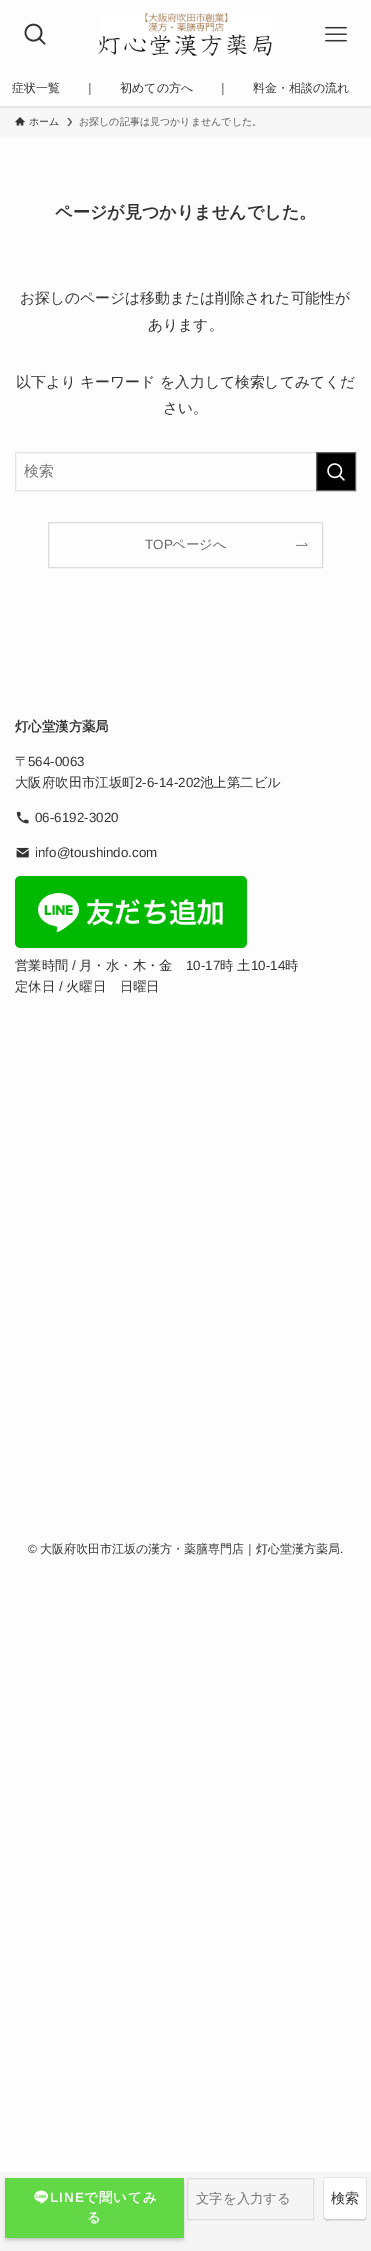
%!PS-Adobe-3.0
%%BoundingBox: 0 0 371 2251
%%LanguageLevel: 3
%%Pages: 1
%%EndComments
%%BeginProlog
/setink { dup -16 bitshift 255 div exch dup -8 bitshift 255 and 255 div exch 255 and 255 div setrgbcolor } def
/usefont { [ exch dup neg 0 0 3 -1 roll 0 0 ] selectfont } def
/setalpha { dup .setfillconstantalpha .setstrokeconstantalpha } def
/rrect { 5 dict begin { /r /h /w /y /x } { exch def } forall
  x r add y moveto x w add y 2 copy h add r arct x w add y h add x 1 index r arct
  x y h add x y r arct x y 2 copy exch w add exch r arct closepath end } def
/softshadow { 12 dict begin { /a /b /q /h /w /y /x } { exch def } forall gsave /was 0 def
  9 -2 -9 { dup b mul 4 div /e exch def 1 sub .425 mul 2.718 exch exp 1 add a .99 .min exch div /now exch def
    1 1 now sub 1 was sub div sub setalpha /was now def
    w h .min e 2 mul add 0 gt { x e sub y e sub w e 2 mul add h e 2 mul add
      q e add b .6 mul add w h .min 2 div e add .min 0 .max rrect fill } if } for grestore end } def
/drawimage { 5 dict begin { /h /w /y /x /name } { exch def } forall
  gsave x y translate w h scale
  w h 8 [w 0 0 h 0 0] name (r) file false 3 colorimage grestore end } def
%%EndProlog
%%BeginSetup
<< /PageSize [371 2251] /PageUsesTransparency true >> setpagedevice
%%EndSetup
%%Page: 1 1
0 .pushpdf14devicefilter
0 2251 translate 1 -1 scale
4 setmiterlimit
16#FDFDFD setink
0 0 371 2251 rectfill
16#F7F7F7 setink
0 106 371 32 rectfill
gsave
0 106 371 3 rectclip
16#000000 setink
0 1 371 106 0 2 0.12 softshadow
grestore
(img1.raw) 24 23 22 22 drawimage
(img2.raw) 98 13 174 44 drawimage
(img3.raw) 325 26 22 16 drawimage
/WenQuanYiZenHei-Medium 12 usefont
16#333333 setink
[
    [(症状一覧　　｜) 12 92]
    [(初めての方へ　　｜) 120 92]
    [(料金・相談の流れ) 253 92]
] { aload pop moveto show } forall
(img4.raw) 15 117 10 9 drawimage
/WenQuanYiZenHei-Medium 10 usefont
29 125 moveto (ホーム) show
16#5A5A5A setink
69 118 moveto 67.5 118 lineto 70.5 122 lineto 67.5 126 lineto 69 126 lineto 72 122 lineto closepath fill
79 125 moveto (お探しの記事は見つかりませんでした。) show
/WenQuanYiZenHei-Bold 17.1 usefont
16#333333 setink
55 218 moveto (ページが見つかりませんでした。) show
/WenQuanYiZenHei-Medium 14.8 usefont
[
    [(お探しのページは移動または削除された可能性が) 20 303]
    [(あります。) 148 330]
    [(以下より キーワード を入力して検索してみてくだ) 16 387]
    [(さい。) 163 413]
] { aload pop moveto show } forall
16#E3E3E3 setink
15.5 452.5 340 38 rectstroke
16#757575 setink
24 476 moveto (検索) show
16#000000 setink
316.5 452.5 moveto 355.5 452.5 lineto 355.5 490.5 lineto 316.5 490.5 lineto closepath gsave fill grestore
16#646464 setink
stroke
(img5.raw) 327 463 18 18 drawimage
16#DCDCDC setink
48.5 522.5 274 45 rectstroke
/LiberationSans-Regular 13.4 usefont
16#666666 setink
145 549 moveto (TOP) show
/WenQuanYiZenHei-Medium 13.4 usefont
172 549 moveto (ページへ) show
(img6.raw) 296 542 12 4 drawimage
/WenQuanYiZenHei-Bold 13.4 usefont
16#333333 setink
15 731 moveto (灯心堂漢方薬局) show
/WenQuanYiZenHei-Medium 13.4 usefont
15 766 moveto (〒) show
/LiberationSans-Regular 13.4 usefont
28 766 moveto (564-0063) show
/WenQuanYiZenHei-Medium 13.4 usefont
15 787 moveto (大阪府吹田市江坂町) show
/LiberationSans-Regular 13.4 usefont
135 787 moveto (2-6-14-202) show
/WenQuanYiZenHei-Medium 13.4 usefont
200 787 moveto (池上第二ビル) show
(img7.raw) 16 811 13 13 drawimage
/LiberationSans-Regular 13.4 usefont
35 822 moveto (06-6192-3020) show
(img8.raw) 16 847 13 11 drawimage
35 857 moveto (info@toushindo.com) show
(img9.raw) 15 876 232 72 drawimage
/WenQuanYiZenHei-Medium 13.4 usefont
15 970 moveto (営業時間) show
/LiberationSans-Regular 13.4 usefont
72 970 moveto (/) show
/WenQuanYiZenHei-Medium 13.4 usefont
79 970 moveto (月・水・木・金) show
/LiberationSans-Regular 13.4 usefont
186 970 moveto (10-17) show
/WenQuanYiZenHei-Medium 13.4 usefont
220 970 moveto (時 土) show
/LiberationSans-Regular 13.4 usefont
251 970 moveto (10-14) show
/WenQuanYiZenHei-Medium 13.4 usefont
285 970 moveto (時) show
15 991 moveto (定休日) show
/LiberationSans-Regular 13.4 usefont
59 991 moveto (/) show
/WenQuanYiZenHei-Medium 13.4 usefont
66 991 moveto (火曜日　日曜日) show
/LiberationSans-Regular 12 usefont
28 1553 moveto (©) show
/WenQuanYiZenHei-Medium 12 usefont
40 1553 moveto (大阪府吹田市江坂の漢方・薬膳専門店｜灯心堂漢方薬局) show
/LiberationSans-Regular 12 usefont
340 1553 moveto (.) show
16#F5F5F5 setink
0 2172 371 79 rectfill
16#DEDEDE setink
187.5 2178.5 126 41 rectstroke
16#000000 setink
9 2186 171 52 0 4 0.2 softshadow
5 2180 179 60 0 1 0.1 softshadow
16#62D847 setink
5 2178 179 60 rectfill
(img10.raw) 34 2190 14 14 drawimage
/LiberationSans-Bold 13.4 usefont
16#FFFFFF setink
50 2202 moveto 1 0 (LINE) ashow
/WenQuanYiZenHei-Bold 13.4 usefont
84 2202 moveto 1 0 (で聞いてみ) ashow
87 2222 moveto 1 0 (る) ashow
/WenQuanYiZenHei-Medium 13.4 usefont
16#757575 setink
196 2203 moveto (文字を入力する) show
16#AAAAAA setink
324 2178 42 42 2 0.5 1 softshadow
16#FFFFFF setink
324 2178 42 42 2 rrect fill
16#CCCCCC setink
324 2217 moveto 324 2222 329 2220 332 2220 curveto 358 2220 lineto 361 2220 366 2222 366 2217 curveto 366 2218 365 2219 364 2219 curveto 326 2219 lineto 325 2219 324 2218 324 2217 curveto closepath fill
/WenQuanYiZenHei-Medium 14 usefont
16#333333 setink
331 2203 moveto (検索) show
.poppdf14devicefilter showpage
%%EOF
